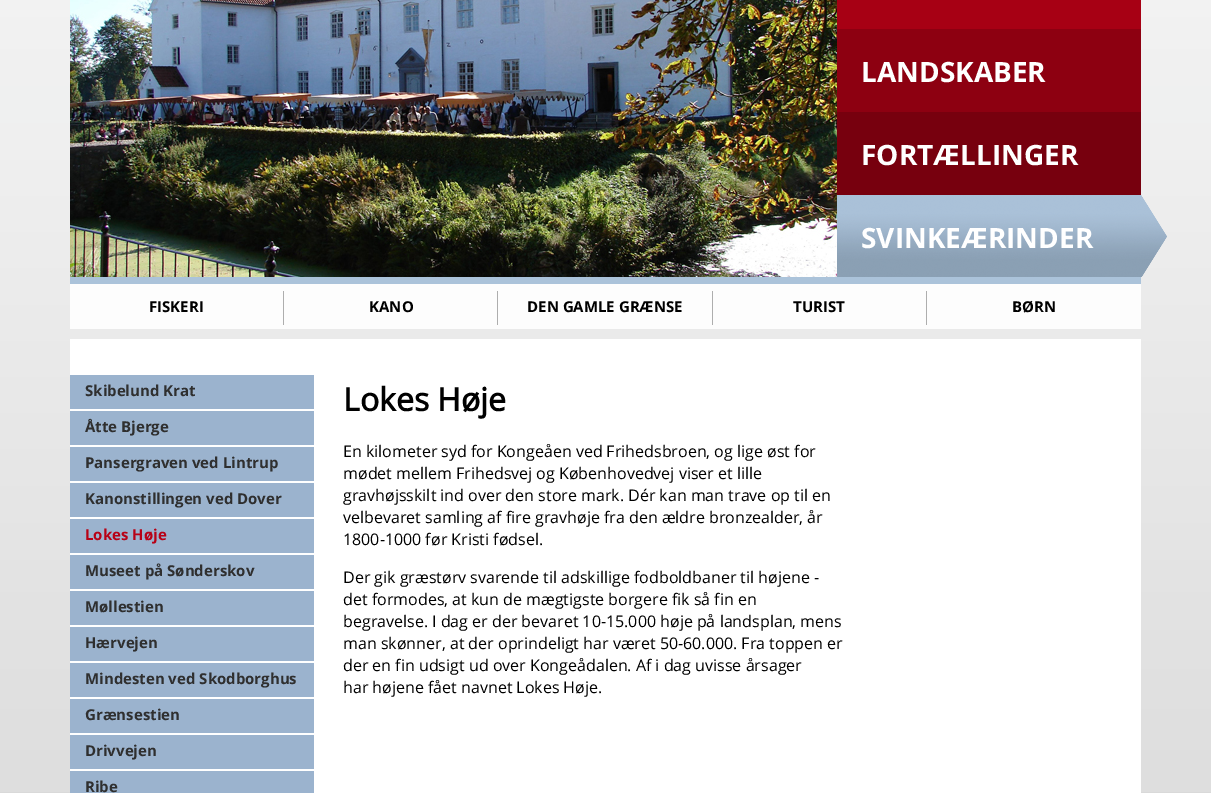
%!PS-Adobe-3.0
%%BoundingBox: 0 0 1211 793
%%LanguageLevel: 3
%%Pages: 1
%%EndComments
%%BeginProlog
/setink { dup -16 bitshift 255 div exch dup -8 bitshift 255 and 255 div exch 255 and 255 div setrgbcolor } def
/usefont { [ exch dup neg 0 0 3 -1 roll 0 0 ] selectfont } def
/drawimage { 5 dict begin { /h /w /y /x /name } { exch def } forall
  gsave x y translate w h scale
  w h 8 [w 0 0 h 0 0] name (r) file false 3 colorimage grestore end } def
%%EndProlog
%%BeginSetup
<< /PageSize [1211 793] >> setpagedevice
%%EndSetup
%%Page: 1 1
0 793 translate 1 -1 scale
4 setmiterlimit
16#D9D9D9 setink
0 0 1211 793 rectfill
(img1.raw) 0 0 1211 792 drawimage
(img2.raw) 70 0 767 277 drawimage
16#A70014 setink
837 0 304 29 rectfill
16#8D0011 setink
837 29 304 83 rectfill
/OpenSans-Bold 28 usefont
16#FFFFFF setink
861 82 moveto (LANDSKABER) show
16#77000E setink
837 112 304 83 rectfill
16#FFFFFF setink
861 165 moveto (FORTÆLLINGER) show
(img3.raw) 837 195 330 82 drawimage
(img4.raw) 1141 195 26 81 drawimage
861 248 moveto (SVINKEÆRINDER) show
[
    [70 277 1071 7 16#ABC3DA]
    [70 284 1071 45 16#FDFDFD]
    [283 291 1 34 16#AEAEAE]
] { aload pop setink rectfill } forall
/OpenSans-Bold 15 usefont
16#000000 setink
149 312 moveto (FISKERI) show
16#AEAEAE setink
497 291 1 34 rectfill
16#000000 setink
369 312 moveto (KANO) show
16#AEAEAE setink
712 291 1 34 rectfill
16#000000 setink
527 312 moveto (DEN GAMLE GRÆNSE) show
16#AEAEAE setink
926 291 1 34 rectfill
16#000000 setink
793 312 moveto (TURIST) show
1012 312 moveto (BØRN) show
16#FFFFFF setink
70 339 1071 454 rectfill
16#9BB3CE setink
70 375 244 34 rectfill
16#2F2F2F setink
85 396 moveto (Skibelund Krat) show
16#9BB3CE setink
70 411 244 34 rectfill
16#2F2F2F setink
85 432 moveto (Åtte Bjerge) show
16#9BB3CE setink
70 447 244 34 rectfill
16#2F2F2F setink
85 468 moveto (Pansergraven ved Lintrup) show
16#9BB3CE setink
70 483 244 34 rectfill
16#2F2F2F setink
85 504 moveto (Kanonstillingen ved Dover) show
16#9BB3CE setink
70 519 244 34 rectfill
16#B80116 setink
85 540 moveto (Lokes Høje) show
16#9BB3CE setink
70 555 244 34 rectfill
16#2F2F2F setink
85 576 moveto (Museet på Sønderskov) show
16#9BB3CE setink
70 591 244 34 rectfill
16#2F2F2F setink
85 612 moveto (Møllestien) show
16#9BB3CE setink
70 627 244 34 rectfill
16#2F2F2F setink
85 648 moveto (Hærvejen) show
16#9BB3CE setink
70 663 244 34 rectfill
16#2F2F2F setink
85 684 moveto (Mindesten ved Skodborghus) show
16#9BB3CE setink
70 699 244 34 rectfill
16#2F2F2F setink
85 720 moveto (Grænsestien) show
16#9BB3CE setink
70 735 244 34 rectfill
16#2F2F2F setink
85 756 moveto (Drivvejen) show
16#9BB3CE setink
70 771 244 22 rectfill
16#2F2F2F setink
85 792 moveto (Ribe) show
/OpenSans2-Bold 32 usefont
16#000000 setink
343 411 moveto (Lokes Høje) show
/OpenSans-Regular 16 usefont
[
    [(En kilometer syd for Kongeåen ved Frihedsbroen, og lige øst for) 343 457]
    [(mødet mellem Frihedsvej og Københovedvej viser et lille) 343 479]
    [(gravhøjsskilt ind over den store mark. Dér kan man trave op til en) 343 501]
    [(velbevaret samling af fire gravhøje fra den ældre bronzealder, år) 343 523]
    [(1800-1000 før Kristi fødsel.) 343 545]
    [(Der gik græstørv svarende til adskillige fodboldbaner til højene -) 343 583]
    [(det formodes, at kun de mægtigste borgere fik så fin en) 343 605]
    [(begravelse. I dag er der bevaret 10-15.000 høje på landsplan, mens) 343 627]
    [(man skønner, at der oprindeligt har været 50-60.000. Fra toppen er) 343 649]
    [(der en fin udsigt ud over Kongeådalen. Af i dag uvisse årsager) 343 671]
    [(har højene fået navnet Lokes Høje.) 343 693]
] { aload pop moveto show } forall
showpage
%%EOF
